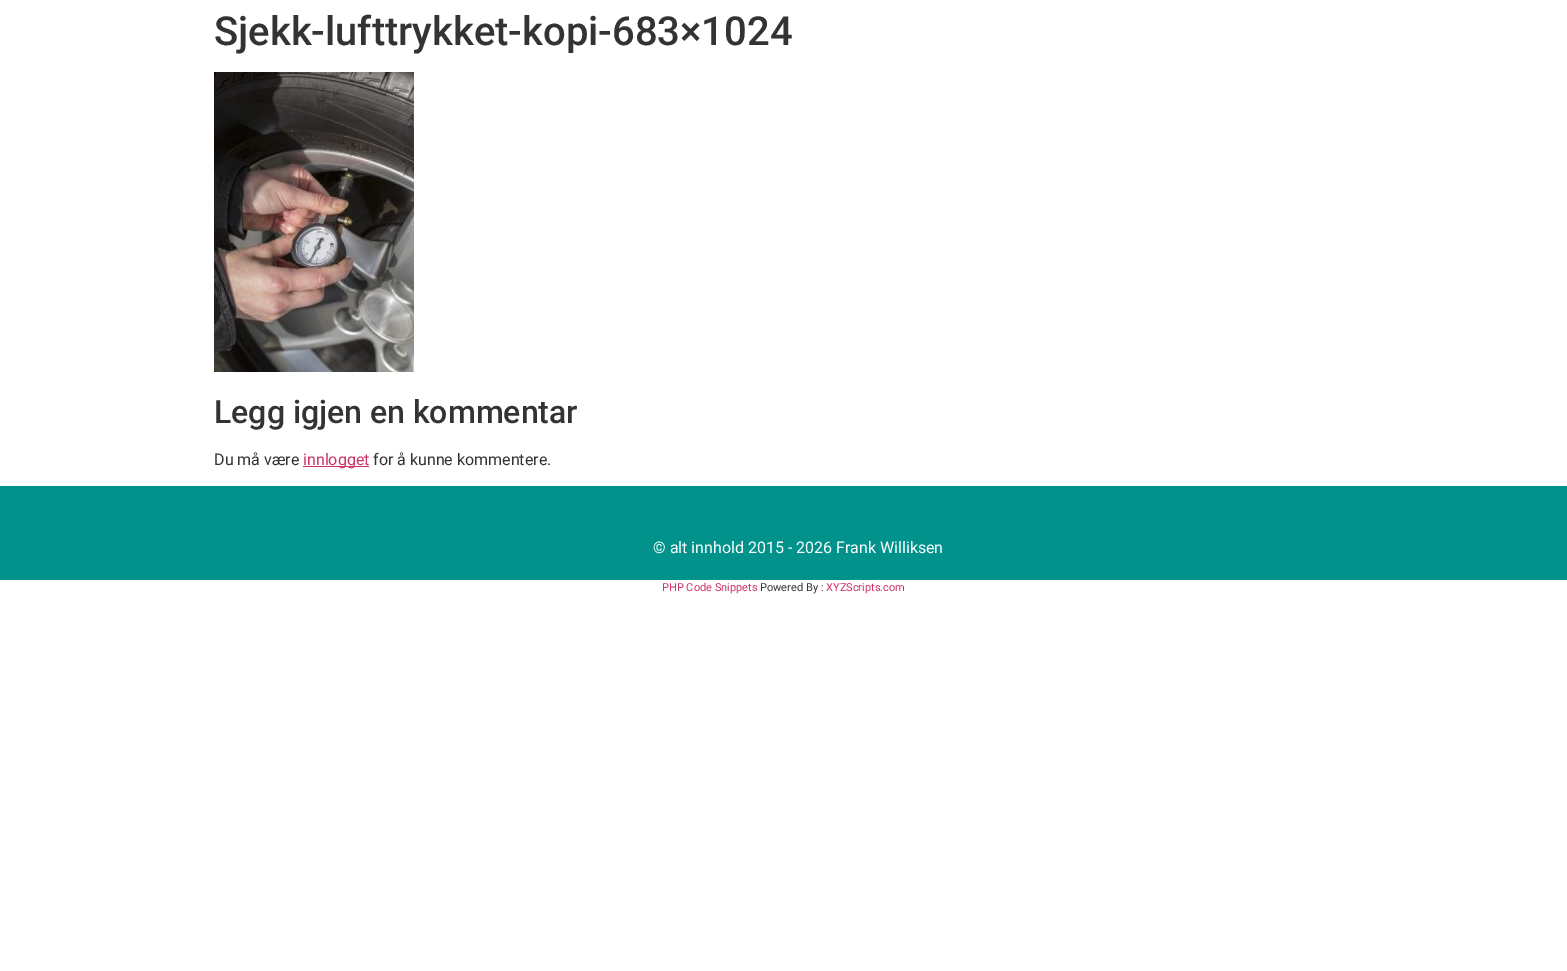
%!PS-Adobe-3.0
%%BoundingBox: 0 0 1567 971
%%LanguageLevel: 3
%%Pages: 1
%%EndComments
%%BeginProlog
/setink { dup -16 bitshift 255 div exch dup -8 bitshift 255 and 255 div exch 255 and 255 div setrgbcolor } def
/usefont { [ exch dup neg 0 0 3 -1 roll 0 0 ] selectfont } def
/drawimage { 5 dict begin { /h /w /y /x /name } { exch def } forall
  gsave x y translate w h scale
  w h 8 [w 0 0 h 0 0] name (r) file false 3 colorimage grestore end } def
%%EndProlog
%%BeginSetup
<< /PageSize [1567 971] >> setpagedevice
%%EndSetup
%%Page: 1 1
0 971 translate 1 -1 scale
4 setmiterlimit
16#FFFFFF setink
0 0 1567 971 rectfill
/Roboto-Medium 40 usefont
16#333333 setink
214 45 moveto (Sjekk-lufttrykket-kopi-683×1024) show
(img1.raw) 214 72 200 300 drawimage
/Roboto-Medium 32 usefont
214 423 moveto (Legg igjen en kommentar) show
/Roboto-Regular 16 usefont
214 465 moveto (Du må være) show
16#CC3366 setink
303 466 66 1 rectfill
303 465 moveto (innlogget) show
16#333333 setink
373 465 moveto (for å kunne kommentere.) show
16#00928B setink
0 486 1567 94 rectfill
16#FFFFFF setink
653 553 moveto (© alt innhold 2015 - 2026 Frank Williksen) show
/Roboto-Regular 11 usefont
16#CC3366 setink
662 591 moveto (PHP Code Snippets) show
16#333333 setink
760 591 moveto (Powered By :) show
16#CC3366 setink
826 591 moveto (XYZScripts.com) show
showpage
%%EOF
